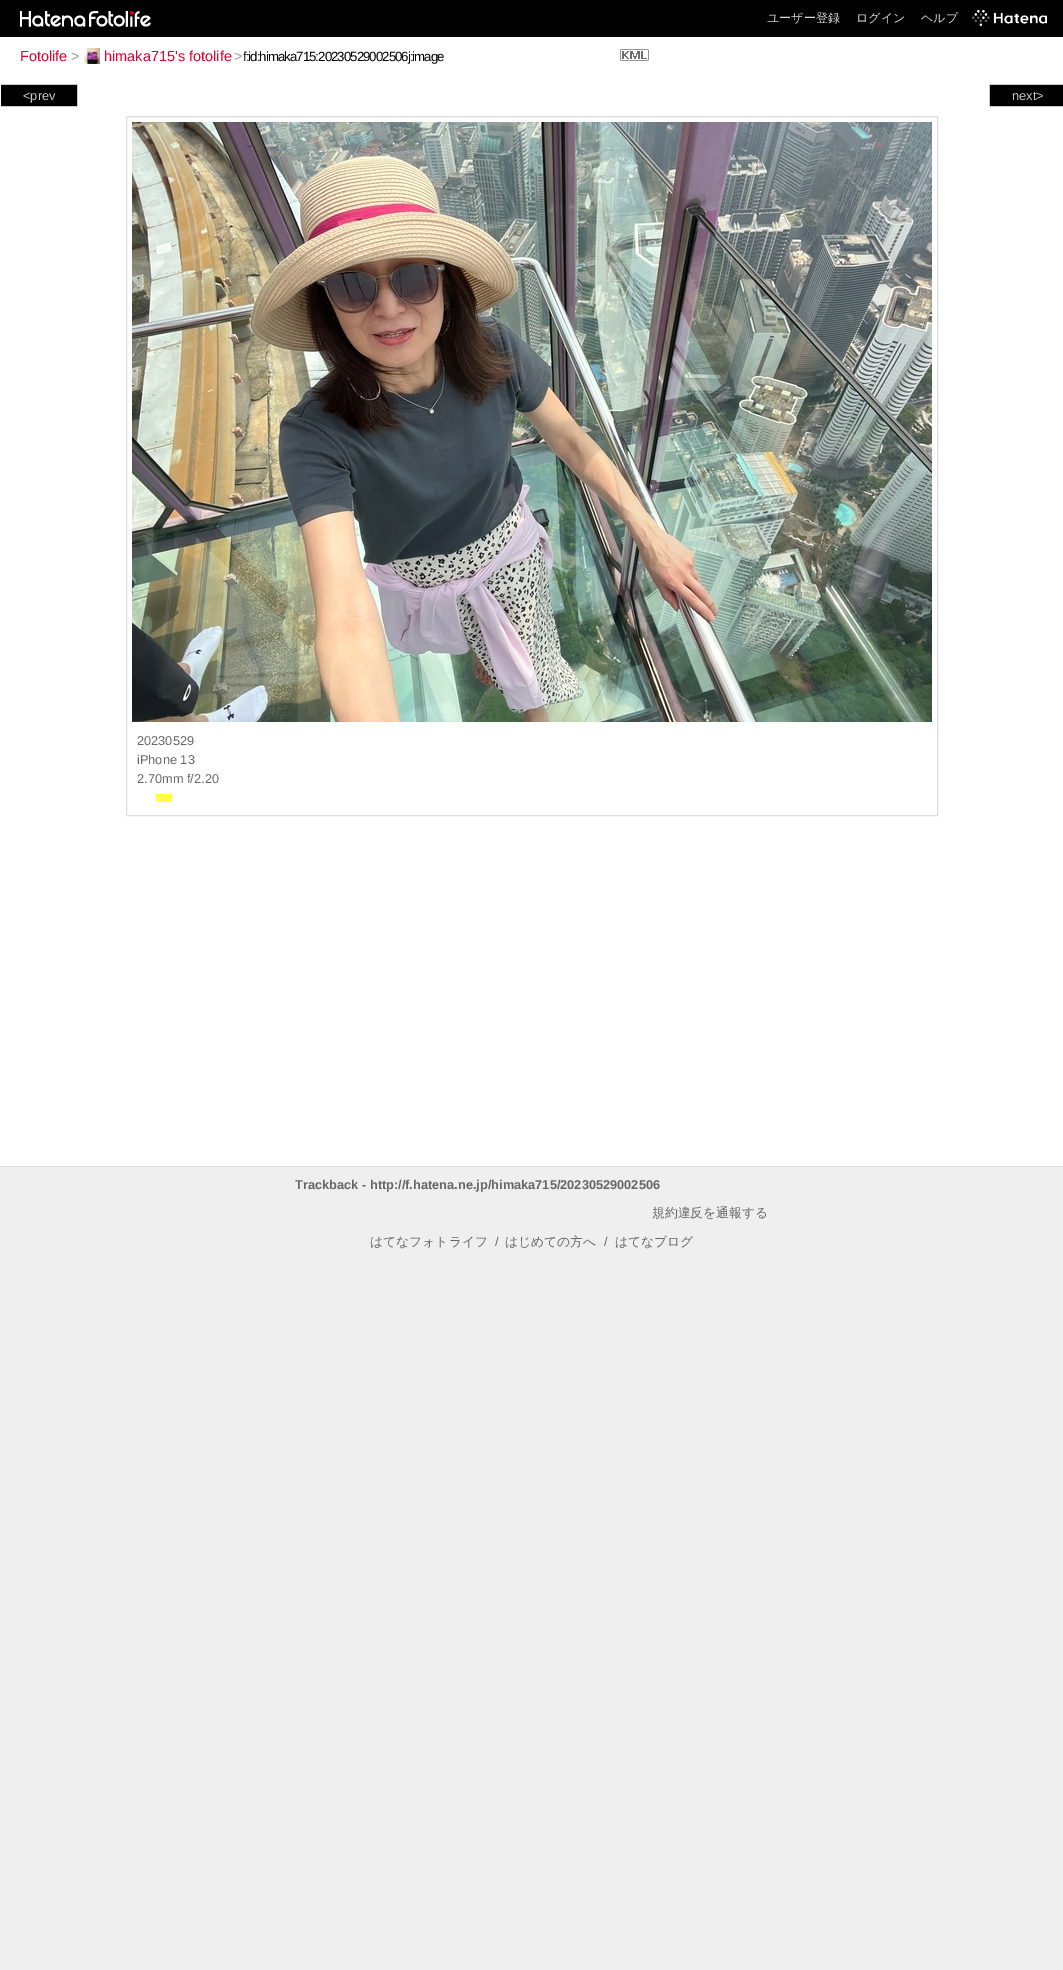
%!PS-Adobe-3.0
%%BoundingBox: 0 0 1063 1970
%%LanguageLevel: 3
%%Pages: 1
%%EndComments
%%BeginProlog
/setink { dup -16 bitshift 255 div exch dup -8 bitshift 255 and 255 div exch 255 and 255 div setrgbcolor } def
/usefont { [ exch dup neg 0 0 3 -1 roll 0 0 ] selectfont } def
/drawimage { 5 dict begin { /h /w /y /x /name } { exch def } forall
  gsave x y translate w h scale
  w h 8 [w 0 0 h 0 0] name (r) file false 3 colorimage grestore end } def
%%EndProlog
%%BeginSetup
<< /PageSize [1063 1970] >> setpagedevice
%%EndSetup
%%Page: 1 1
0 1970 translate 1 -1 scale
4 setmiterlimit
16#EFEFEF setink
0 0 1063 1970 rectfill
16#000000 setink
0 0 1063 37 rectfill
(img1.raw) 20 11 66 16 drawimage
(img2.raw) 89 11 62 16 drawimage
/WenQuanYiZenHei-Medium 12 usefont
16#DDDDDD setink
[
    [(ユーザー登録) 767 22]
    [(ログイン) 856 22]
    [(ヘルプ) 921 22]
] { aload pop moveto show } forall
(img3.raw) 972 10 75 16 drawimage
16#FFFFFF setink
0 37 1063 1129 rectfill
/LiberationSans-Regular 14.5 usefont
16#DE002F setink
20 61 moveto (Fotolife) show
16#999999 setink
71 61 moveto (>) show
(img4.raw) 84 48 16 16 drawimage
16#DE002F setink
104 61 moveto (himaka715's fotolife) show
16#999999 setink
234 61 moveto (>) show
/LiberationSans-Regular 13.3 usefont
16#000000 setink
243 61 moveto -1 0 (f:id:himaka715:20230529002506j:image) ashow
(img5.raw) 620 49 29 12 drawimage
[
    [0 1166 1063 1 16#DEDEDE]
    [1 85 76 21 16#000000]
    [1 84 77 1 16#CCCCCC]
    [77 84 1 23 16#CCCCCC]
    [1 106 77 1 16#CCCCCC]
] { aload pop setink rectfill } forall
/LiberationSans-Regular 12.8 usefont
23 100 moveto (<prev) show
[
    [990 85 73 21 16#000000]
    [989 84 74 1 16#CCCCCC]
    [989 106 74 1 16#CCCCCC]
    [989 84 1 23 16#CCCCCC]
] { aload pop setink rectfill } forall
1012 100 moveto (next>) show
16#DEDEDE setink
126.5 116.5 811 699 rectstroke
(img6.raw) 132 122 800 600 drawimage
16#666666 setink
[
    [(20230529) 137 745]
    [(iPhone 13) 137 764]
    [(2.70mm f/2.20) 137 783]
] { aload pop moveto show } forall
16#FFFF40 setink
156 794 16 8 rectfill
/LiberationSans-Bold 12.8 usefont
16#666666 setink
295 1189 moveto (Trackback - http://f.hatena.ne.jp/himaka715/20230529002506) show
/WenQuanYiZenHei-Medium 12.8 usefont
652 1217 moveto (規約違反を通報する) show
370 1246 moveto (はてなフォトライフ) show
/LiberationSans-Regular 12.8 usefont
495 1246 moveto (/) show
/WenQuanYiZenHei-Medium 12.8 usefont
505 1246 moveto (はじめての方へ) show
/LiberationSans-Regular 12.8 usefont
604 1246 moveto (/) show
/WenQuanYiZenHei-Medium 12.8 usefont
615 1246 moveto (はてなブログ) show
showpage
%%EOF
